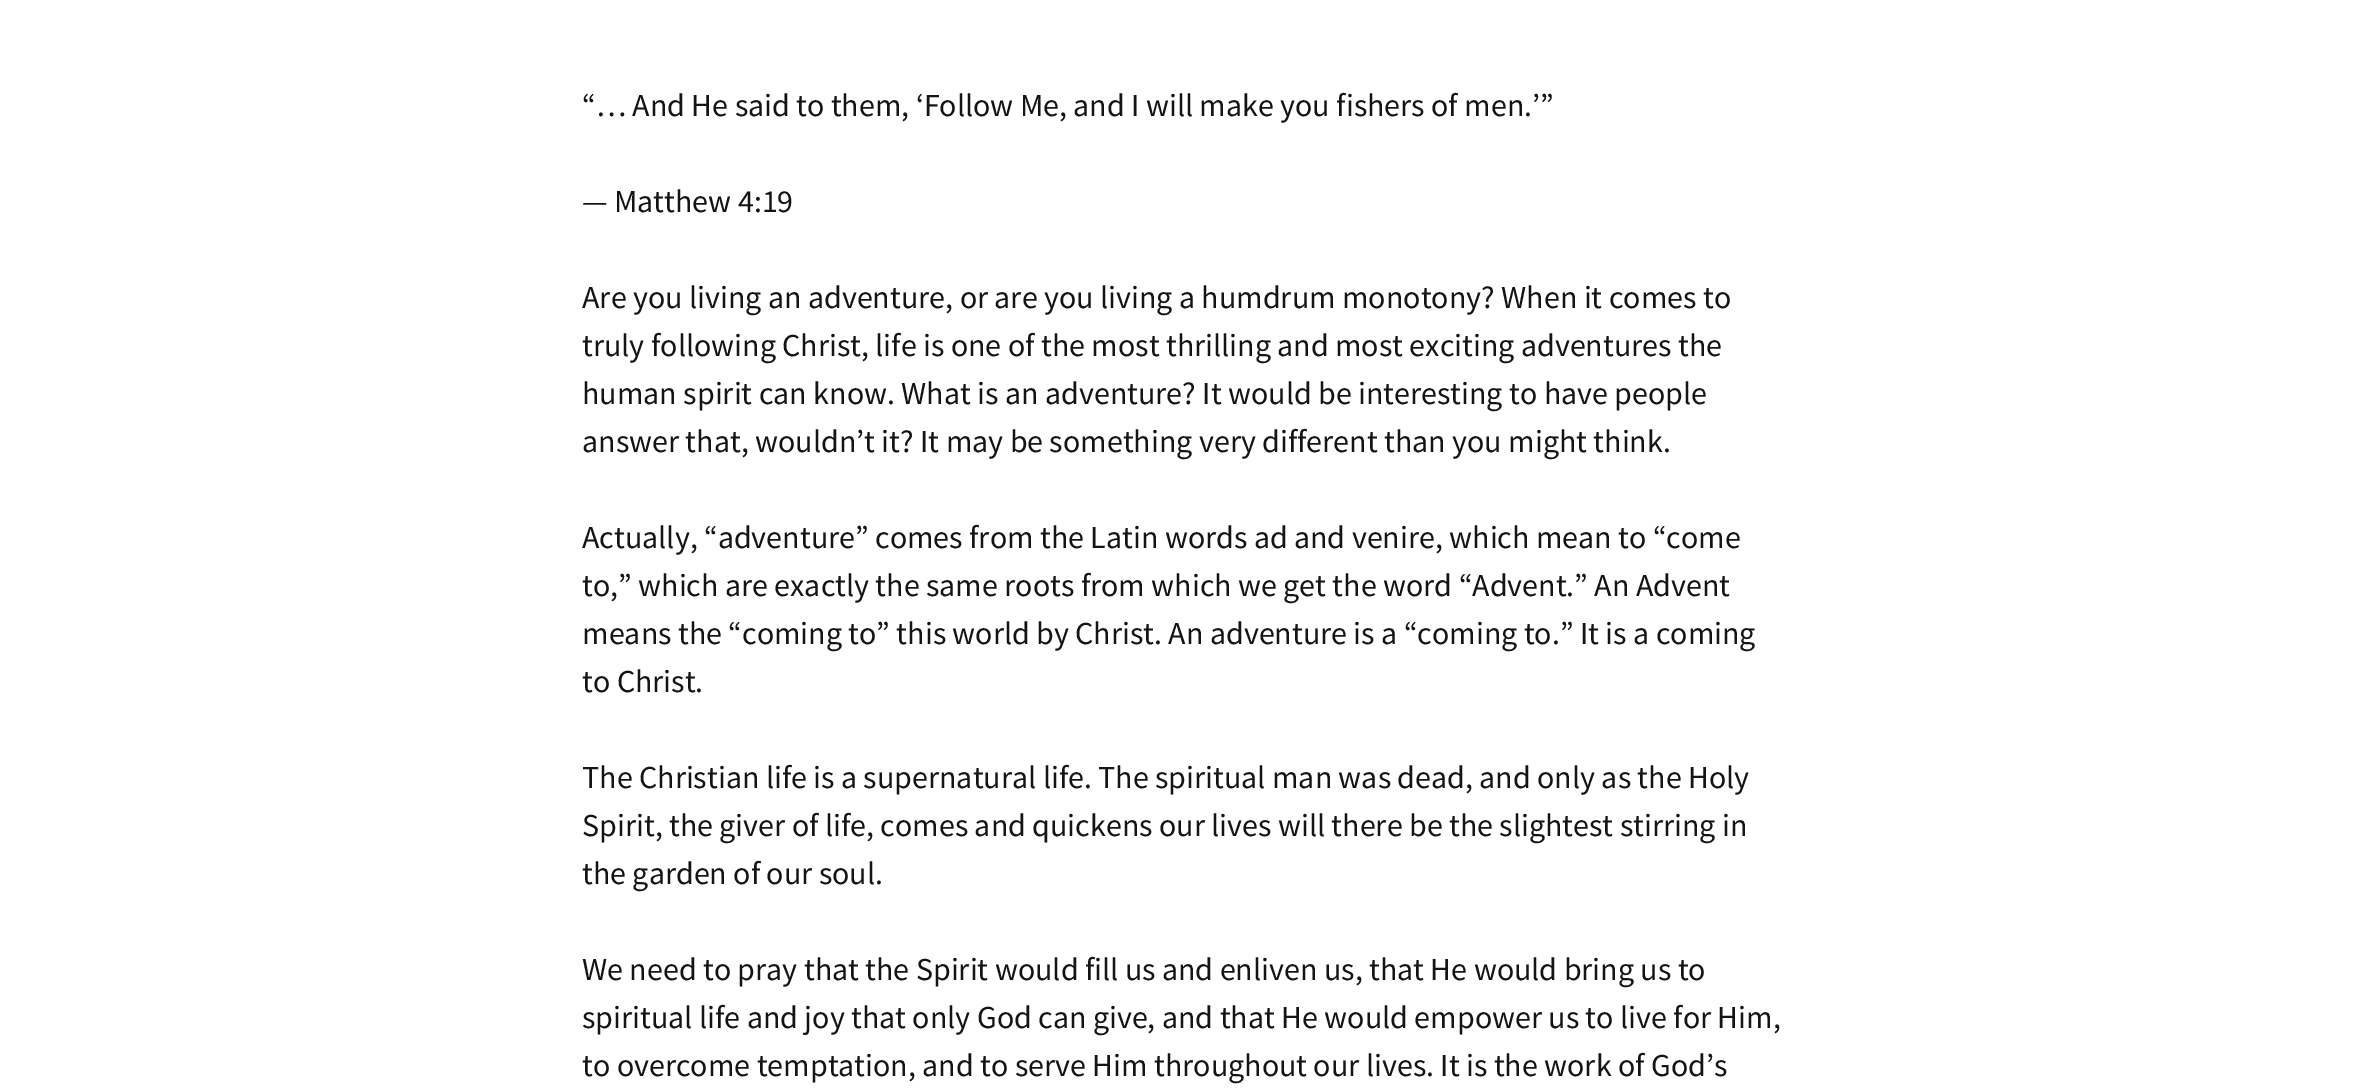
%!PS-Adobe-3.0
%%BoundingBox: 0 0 2371 1090
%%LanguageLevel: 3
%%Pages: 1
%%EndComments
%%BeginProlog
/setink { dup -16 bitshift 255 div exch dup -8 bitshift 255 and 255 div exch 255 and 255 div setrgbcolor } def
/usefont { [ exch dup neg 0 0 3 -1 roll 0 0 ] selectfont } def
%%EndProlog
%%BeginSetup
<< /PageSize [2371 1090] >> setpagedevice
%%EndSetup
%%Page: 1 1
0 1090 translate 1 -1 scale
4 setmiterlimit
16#FFFFFF setink
0 0 2371 1090 rectfill
/SourceSansPro-Regular 32 usefont
16#141412 setink
[
    [(“… And He said to them, ‘Follow Me, and I will make you fishers of men.’”) 582 116]
    [(— Matthew 4:19) 582 212]
    [(Are you living an adventure, or are you living a humdrum monotony? When it comes to) 582 308]
    [(truly following Christ, life is one of the most thrilling and most exciting adventures the) 582 356]
    [(human spirit can know. What is an adventure? It would be interesting to have people) 582 404]
    [(answer that, wouldn’t it? It may be something very different than you might think.) 582 452]
    [(Actually, “adventure” comes from the Latin words ad and venire, which mean to “come) 582 548]
    [(to,” which are exactly the same roots from which we get the word “Advent.” An Advent) 582 596]
    [(means the “coming to” this world by Christ. An adventure is a “coming to.” It is a coming) 582 644]
    [(to Christ.) 582 692]
    [(The Christian life is a supernatural life. The spiritual man was dead, and only as the Holy) 582 788]
    [(Spirit, the giver of life, comes and quickens our lives will there be the slightest stirring in) 582 836]
    [(the garden of our soul.) 582 884]
    [(We need to pray that the Spirit would fill us and enliven us, that He would bring us to) 582 980]
    [(spiritual life and joy that only God can give, and that He would empower us to live for Him,) 582 1028]
    [(to overcome temptation, and to serve Him throughout our lives. It is the work of God’s) 582 1076]
] { aload pop moveto show } forall
showpage
%%EOF
